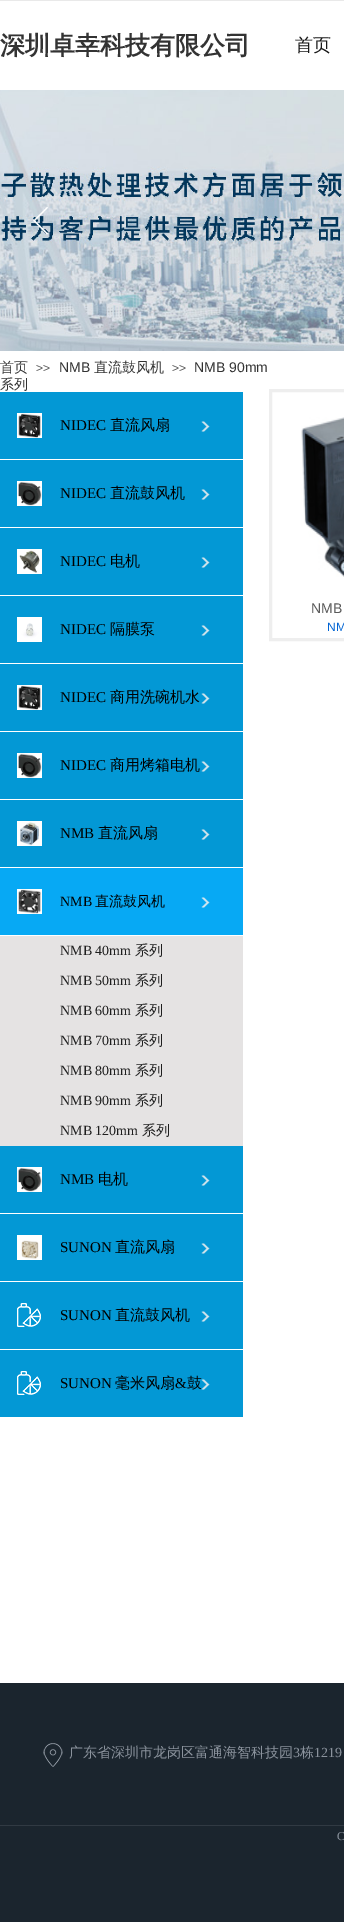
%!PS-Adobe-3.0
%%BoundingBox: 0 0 344 1922
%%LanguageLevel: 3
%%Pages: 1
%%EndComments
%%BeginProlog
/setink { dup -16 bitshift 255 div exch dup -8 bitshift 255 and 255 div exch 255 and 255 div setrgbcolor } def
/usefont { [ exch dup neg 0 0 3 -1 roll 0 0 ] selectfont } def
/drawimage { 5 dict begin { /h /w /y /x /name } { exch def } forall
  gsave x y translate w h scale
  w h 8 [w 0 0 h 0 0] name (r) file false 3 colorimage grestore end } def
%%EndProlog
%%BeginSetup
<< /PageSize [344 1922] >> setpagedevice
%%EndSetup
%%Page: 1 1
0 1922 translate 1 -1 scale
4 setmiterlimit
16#FFFFFF setink
0 0 344 1922 rectfill
16#E9E9E9 setink
0 0 344 1 rectfill
/WenQuanYiZenHei-Bold 25 usefont
16#333333 setink
0 54 moveto (深圳卓幸科技有限公司) show
/WenQuanYiZenHei-Medium 18 usefont
16#181818 setink
295 51 moveto (首页) show
(img1.raw) 0 90 344 261 drawimage
(img2.raw) 33 207 15 28 drawimage
/WenQuanYiZenHei-Medium 14 usefont
16#333333 setink
0 372 moveto (首页) show
/LiberationSans-Regular 12 usefont
16#5A5A5A setink
36 372 moveto (>>) show
/LiberationSans-Regular 14 usefont
16#333333 setink
59 372 moveto (NMB) show
/WenQuanYiZenHei-Medium 14 usefont
94 372 moveto (直流鼓风机) show
/LiberationSans-Regular 12 usefont
16#5A5A5A setink
172 372 moveto (>>) show
/LiberationSans-Regular 14 usefont
16#333333 setink
194 372 moveto (NMB 90mm) show
/WenQuanYiZenHei-Medium 14 usefont
0 389 moveto (系列) show
16#0398D5 setink
0 392 243 67 rectfill
(img3.raw) 17 413 25 25 drawimage
/LiberationSerif-Regular 15 usefont
16#000000 setink
60 430 moveto (NIDEC) show
/WenQuanYiZenHei-Medium 15 usefont
110 430 moveto (直流风扇) show
(img4.raw) 201 421 9 11 drawimage
16#0398D5 setink
0 460 243 67 rectfill
(img5.raw) 17 481 25 25 drawimage
/LiberationSerif-Regular 15 usefont
16#000000 setink
60 498 moveto (NIDEC) show
/WenQuanYiZenHei-Medium 15 usefont
110 498 moveto (直流鼓风机) show
(img4.raw) 201 489 9 11 drawimage
16#0398D5 setink
0 528 243 67 rectfill
(img6.raw) 17 549 25 25 drawimage
/LiberationSerif-Regular 15 usefont
16#000000 setink
60 566 moveto (NIDEC) show
/WenQuanYiZenHei-Medium 15 usefont
110 566 moveto (电机) show
(img4.raw) 201 557 9 11 drawimage
16#0398D5 setink
0 596 243 67 rectfill
(img7.raw) 17 617 25 25 drawimage
/LiberationSerif-Regular 15 usefont
16#000000 setink
60 634 moveto (NIDEC) show
/WenQuanYiZenHei-Medium 15 usefont
110 634 moveto (隔膜泵) show
(img4.raw) 201 625 9 11 drawimage
16#0398D5 setink
0 664 243 67 rectfill
(img3.raw) 17 685 25 25 drawimage
/LiberationSerif-Regular 15 usefont
16#000000 setink
60 702 moveto (NIDEC) show
/WenQuanYiZenHei-Medium 15 usefont
110 702 moveto (商用洗碗机水) show
(img4.raw) 201 693 9 11 drawimage
16#0398D5 setink
0 732 243 67 rectfill
(img5.raw) 17 753 25 25 drawimage
/LiberationSerif-Regular 15 usefont
16#000000 setink
60 770 moveto (NIDEC) show
/WenQuanYiZenHei-Medium 15 usefont
110 770 moveto (商用烤箱电机) show
(img4.raw) 201 761 9 11 drawimage
16#0398D5 setink
0 800 243 67 rectfill
(img8.raw) 17 821 25 25 drawimage
/LiberationSerif-Regular 15 usefont
16#000000 setink
60 838 moveto (NMB) show
/WenQuanYiZenHei-Medium 15 usefont
98 838 moveto (直流风扇) show
(img4.raw) 201 829 9 11 drawimage
16#07A9F4 setink
0 868 243 67 rectfill
(img9.raw) 17 889 25 25 drawimage
/LiberationSerif-Regular 14 usefont
16#000000 setink
60 906 moveto (NMB) show
/WenQuanYiZenHei-Medium 14 usefont
95 906 moveto (直流鼓风机) show
(img10.raw) 201 897 9 11 drawimage
16#E5E3E3 setink
0 936 243 210 rectfill
/LiberationSerif-Regular 14 usefont
16#1E1E1E setink
60 955 moveto (NMB 40mm) show
/WenQuanYiZenHei-Medium 14 usefont
135 955 moveto (系列) show
/LiberationSerif-Regular 14 usefont
60 985 moveto (NMB 50mm) show
/WenQuanYiZenHei-Medium 14 usefont
135 985 moveto (系列) show
/LiberationSerif-Regular 14 usefont
60 1015 moveto (NMB 60mm) show
/WenQuanYiZenHei-Medium 14 usefont
135 1015 moveto (系列) show
/LiberationSerif-Regular 14 usefont
60 1045 moveto (NMB 70mm) show
/WenQuanYiZenHei-Medium 14 usefont
135 1045 moveto (系列) show
/LiberationSerif-Regular 14 usefont
60 1075 moveto (NMB 80mm) show
/WenQuanYiZenHei-Medium 14 usefont
135 1075 moveto (系列) show
/LiberationSerif-Regular 14 usefont
60 1105 moveto (NMB 90mm) show
/WenQuanYiZenHei-Medium 14 usefont
135 1105 moveto (系列) show
/LiberationSerif-Regular 14 usefont
60 1135 moveto (NMB 120mm) show
/WenQuanYiZenHei-Medium 14 usefont
142 1135 moveto (系列) show
16#0398D5 setink
0 1146 243 67 rectfill
(img5.raw) 17 1167 25 25 drawimage
/LiberationSerif-Regular 15 usefont
16#000000 setink
60 1184 moveto (NMB) show
/WenQuanYiZenHei-Medium 15 usefont
98 1184 moveto (电机) show
(img4.raw) 201 1175 9 11 drawimage
16#0398D5 setink
0 1214 243 67 rectfill
(img11.raw) 17 1235 25 25 drawimage
/LiberationSerif-Regular 15 usefont
16#000000 setink
60 1252 moveto (SUNON) show
/WenQuanYiZenHei-Medium 15 usefont
115 1252 moveto (直流风扇) show
(img4.raw) 201 1243 9 11 drawimage
16#0398D5 setink
0 1282 243 67 rectfill
(img12.raw) 17 1303 24 24 drawimage
/LiberationSerif-Regular 15 usefont
16#000000 setink
60 1320 moveto (SUNON) show
/WenQuanYiZenHei-Medium 15 usefont
115 1320 moveto (直流鼓风机) show
(img4.raw) 201 1311 9 11 drawimage
16#0398D5 setink
0 1350 243 67 rectfill
(img12.raw) 17 1371 24 24 drawimage
/LiberationSerif-Regular 15 usefont
16#000000 setink
60 1388 moveto (SUNON) show
/WenQuanYiZenHei-Medium 15 usefont
115 1388 moveto (毫米风扇) show
/LiberationSerif-Regular 15 usefont
175 1388 moveto (&) show
/WenQuanYiZenHei-Medium 15 usefont
187 1388 moveto (鼓) show
(img13.raw) 201 1379 9 11 drawimage
16#EEEEEE setink
3 setlinewidth
270.5 390.5 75 249 rectstroke
(img14.raw) 301 417 43 160 drawimage
/LiberationSans-Regular 14 usefont
16#5A5A5A setink
311 613 moveto (NMB) show
/LiberationSans-Regular 12 usefont
16#0064D4 setink
327 631 moveto (NM) show
16#1B252E setink
0 1683 344 239 rectfill
(img15.raw) 43 1743 20 24 drawimage
/WenQuanYiZenHei-Medium 14 usefont
16#8B939D setink
69 1757 moveto (广东省深圳市龙岗区富通海智科技园) show
/LiberationSerif-Regular 14 usefont
293 1757 moveto (3) show
/WenQuanYiZenHei-Medium 14 usefont
300 1757 moveto (栋) show
/LiberationSerif-Regular 14 usefont
314 1757 moveto (1219) show
16#313A43 setink
0 1825 344 1 rectfill
/LiberationSerif-Regular 12 usefont
16#8B939D setink
337 1840 moveto (C) show
showpage
%%EOF
